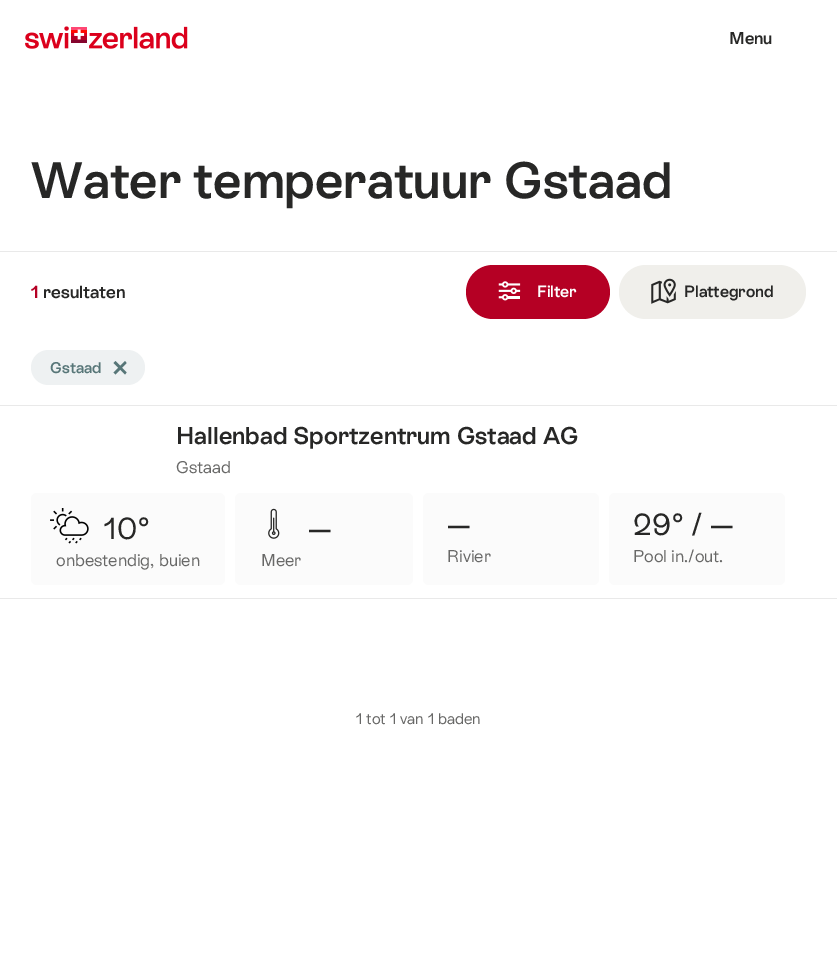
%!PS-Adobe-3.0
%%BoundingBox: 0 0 837 954
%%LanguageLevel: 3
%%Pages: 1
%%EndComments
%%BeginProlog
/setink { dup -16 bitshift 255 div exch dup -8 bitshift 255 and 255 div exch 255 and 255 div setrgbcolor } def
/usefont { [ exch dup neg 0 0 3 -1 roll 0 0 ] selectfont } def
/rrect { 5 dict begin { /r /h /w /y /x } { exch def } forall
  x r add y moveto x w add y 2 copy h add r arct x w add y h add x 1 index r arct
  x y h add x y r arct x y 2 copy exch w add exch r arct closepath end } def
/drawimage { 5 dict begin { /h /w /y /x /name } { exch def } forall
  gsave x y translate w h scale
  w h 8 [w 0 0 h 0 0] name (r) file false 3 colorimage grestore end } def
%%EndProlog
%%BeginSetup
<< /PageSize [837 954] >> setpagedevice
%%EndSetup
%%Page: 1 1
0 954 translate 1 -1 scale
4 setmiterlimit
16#FFFFFF setink
0 0 837 954 rectfill
(img1.raw) 25 26 163 23 drawimage
/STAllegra-SemiBold 17 usefont
16#272726 setink
729 44 moveto (Menu) show
16#E9E9E9 setink
0 251 837 1 rectfill
/STAllegra-SemiBold 51 usefont
16#272726 setink
31 198 moveto (Water temperatuur Gstaad) show
/STAllegra-SemiBold 17.5 usefont
16#B50024 setink
31 298 moveto (1) show
16#272726 setink
43 298 moveto (resultaten) show
16#B50024 setink
466 265 144 54 27 rrect fill
(img2.raw) 498 281 23 20 drawimage
/STAllegra-SemiBold 16.25 usefont
16#FFFFFF setink
537 297 moveto (Filter) show
16#F0EFEB setink
619 265 187 54 27 rrect fill
(img3.raw) 651 278 25 26 drawimage
16#272726 setink
684 297 moveto (Plattegrond) show
16#EEF1F2 setink
31 350 114 35 17.5 rrect fill
/STAllegra-SemiBold 15.5 usefont
16#577678 setink
50 373 moveto (Gstaad) show
115.5 361 moveto 126.5 372.5 lineto 125 374.5 lineto 113.5 363 lineto closepath fill
113.5 372.5 moveto 125 361 lineto 126.5 363 lineto 115.5 374.5 lineto closepath fill
16#E9E9E9 setink
0 405 837 1 rectfill
0 598 837 1 rectfill
/STAllegra-SemiBold 24.25 usefont
16#272726 setink
176 444 moveto (Hallenbad Sportzentrum Gstaad AG) show
/STAllegra-Regular 17 usefont
16#686867 setink
176 473 moveto (Gstaad) show
16#FBFBFB setink
31 493 194 92 6 rrect fill
(img4.raw) 50 508 39 36 drawimage
/STAllegra-Regular 30.5 usefont
16#272726 setink
104 539 moveto 0.5 0 (10°) ashow
/STAllegra-Regular 17 usefont
16#686867 setink
56 566 moveto (onbestendig, buien) show
16#FBFBFB setink
235 493 178 92 6 rrect fill
(img5.raw) 268 508 12 31 drawimage
/STAllegra-Regular 30.5 usefont
16#272726 setink
308 539 moveto 0.5 0 (—) ashow
/STAllegra-Regular 17 usefont
16#686867 setink
261 566 moveto (Meer) show
16#FBFBFB setink
423 493 176 92 6 rrect fill
/STAllegra-Regular 30.5 usefont
16#272726 setink
447 535 moveto 0.5 0 (—) ashow
/STAllegra-Regular 17 usefont
16#686867 setink
447 562 moveto (Rivier) show
16#FBFBFB setink
609 493 176 92 6 rrect fill
/STAllegra-Regular 30.5 usefont
16#272726 setink
633 535 moveto -1 0 32 0.5 0 (29° / —) awidthshow
/STAllegra-Regular 17 usefont
16#686867 setink
633 562 moveto (Pool in./out.) show
/STAllegra-Regular 15.5 usefont
356 724 moveto (1 tot 1 van 1 baden) show
showpage
%%EOF
